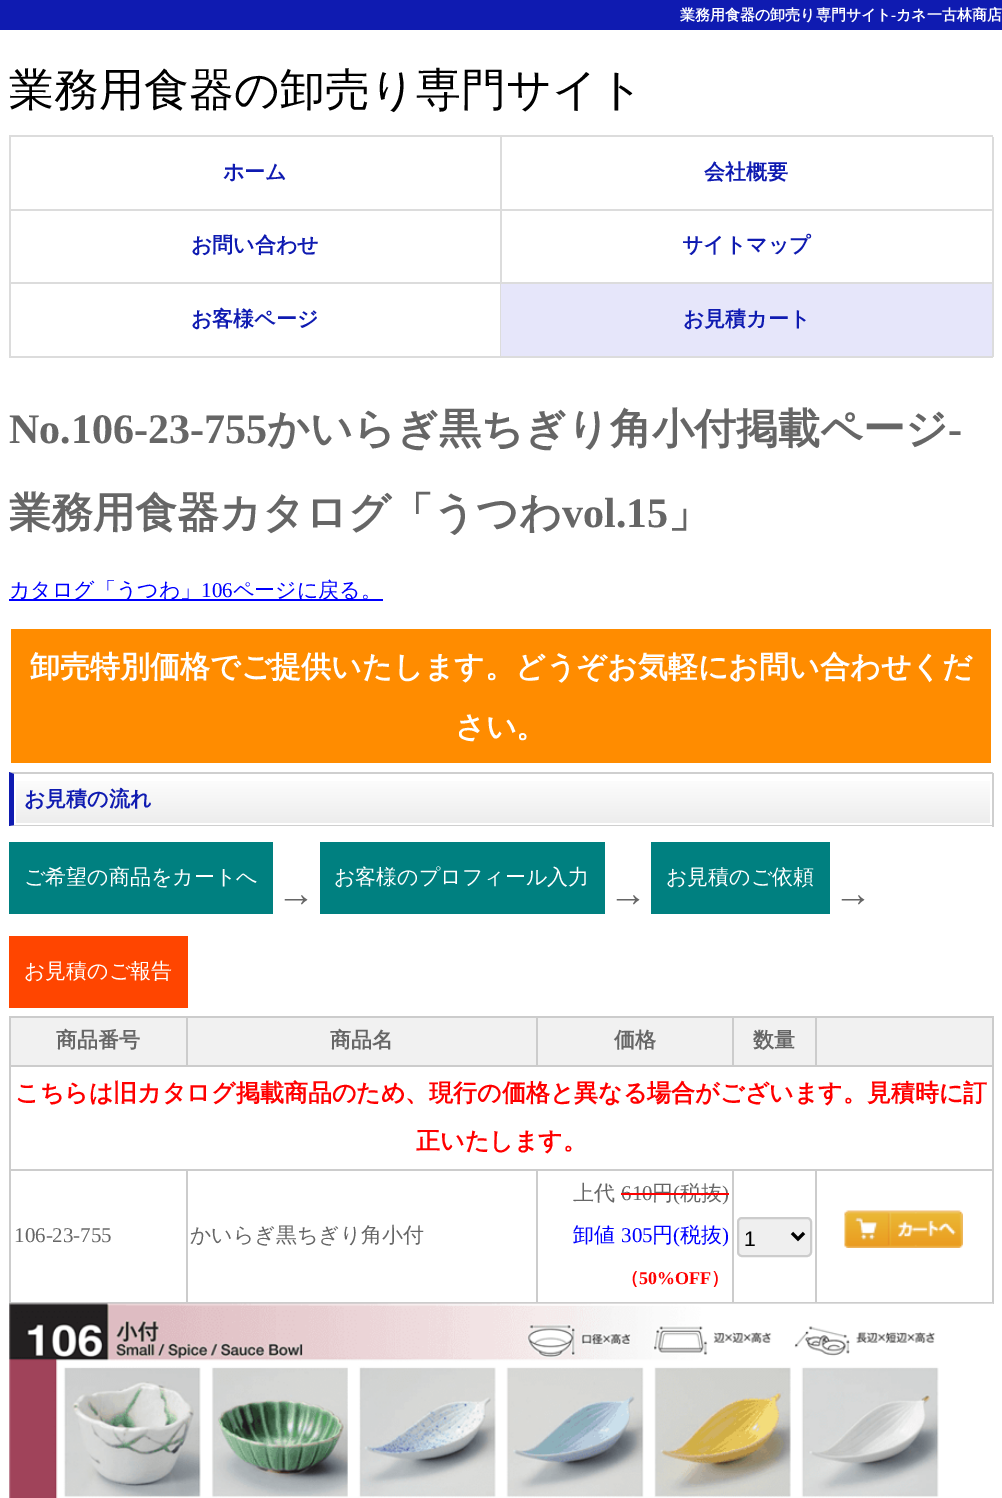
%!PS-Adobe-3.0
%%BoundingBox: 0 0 1002 1498
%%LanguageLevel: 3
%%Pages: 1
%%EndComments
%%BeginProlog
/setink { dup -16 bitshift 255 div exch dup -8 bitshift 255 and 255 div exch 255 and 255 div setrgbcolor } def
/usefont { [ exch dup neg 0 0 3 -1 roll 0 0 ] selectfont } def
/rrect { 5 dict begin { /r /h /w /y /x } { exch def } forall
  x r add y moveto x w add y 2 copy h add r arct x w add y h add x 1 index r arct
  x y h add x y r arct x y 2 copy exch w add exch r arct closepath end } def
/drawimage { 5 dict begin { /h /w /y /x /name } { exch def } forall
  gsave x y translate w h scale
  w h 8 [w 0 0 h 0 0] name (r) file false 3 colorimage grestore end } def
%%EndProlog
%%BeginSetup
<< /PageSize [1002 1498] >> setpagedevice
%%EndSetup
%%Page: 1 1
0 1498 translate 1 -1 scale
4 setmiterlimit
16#FFFFFF setink
0 0 1002 1498 rectfill
16#0F1BB1 setink
0 0 1002 30 rectfill
/WenQuanYiZenHei-Bold 15 usefont
16#FFFFFF setink
680 20 moveto (業務用食器の卸売り専門サイト) show
/LiberationSerif-Bold 15 usefont
891 20 moveto (-) show
/WenQuanYiZenHei-Bold 15 usefont
896 20 moveto (カネ一古林商店) show
/WenQuanYiZenHei-Medium 45 usefont
16#000000 setink
9 105 moveto (業務用食器の卸売り専門サイト) show
[
    [9 135 984 2 16#DCDCDC]
    [500 137 2 73 16#DCDCDC]
    [9 209 492 2 16#DCDCDC]
    [9 137 2 73 16#DCDCDC]
] { aload pop setink rectfill } forall
/WenQuanYiZenHei-Bold 21 usefont
16#0F1BB1 setink
223 179 moveto (ホーム) show
16#DCDCDC setink
992 137 2 73 rectfill
501 209 492 2 rectfill
16#0F1BB1 setink
704 179 moveto (会社概要) show
[
    [500 210 2 74 16#DCDCDC]
    [9 282 492 2 16#DCDCDC]
    [9 210 2 74 16#DCDCDC]
] { aload pop setink rectfill } forall
16#0F1BB1 setink
191 252 moveto (お問い合わせ) show
16#DCDCDC setink
992 210 2 147 rectfill
501 282 492 2 rectfill
16#0F1BB1 setink
682 252 moveto (サイトマップ) show
[
    [500 284 1 73 16#DCDCDC]
    [9 356 984 2 16#DCDCDC]
    [9 284 2 73 16#DCDCDC]
] { aload pop setink rectfill } forall
16#0F1BB1 setink
191 326 moveto (お客様ページ) show
16#E6E6FA setink
501 284 491 72 rectfill
16#0F1BB1 setink
683 326 moveto (お見積カート) show
/LiberationSerif-Bold 42 usefont
16#666666 setink
9 443 moveto (No.106-23-755) show
/WenQuanYiZenHei-Bold 42 usefont
267 443 moveto (かいらぎ黒ちぎり角小付掲載ページ) show
/LiberationSerif-Bold 42 usefont
948 443 moveto (-) show
/WenQuanYiZenHei-Bold 42 usefont
9 527 moveto (業務用食器カタログ「うつわ) show
/LiberationSerif-Bold 42 usefont
562 527 moveto (vol.15) show
/WenQuanYiZenHei-Bold 42 usefont
668 527 moveto (」) show
16#0000FF setink
9 599 374 2 rectfill
/WenQuanYiZenHei-Medium 21 usefont
9 597 moveto (カタログ「うつわ」) show
/LiberationSerif-Regular 21 usefont
201 597 moveto (106) show
/WenQuanYiZenHei-Medium 21 usefont
233 597 moveto (ページに戻る。) show
16#FF8C00 setink
11 629 980 134 rectfill
/WenQuanYiZenHei-Bold 30 usefont
16#FFFFFF setink
30 677 moveto (卸売特別価格でご提供いたします。どうぞお気軽にお問い合わせくだ) show
455 737 moveto (さい。) show
gsave 16 781 moveto 990 781 lineto 990 823 lineto 16 823 lineto closepath clip newpath
<< /ShadingType 2 /ColorSpace /DeviceRGB /Coords [503 774 503 825] /Extend [true true] /Function << /FunctionType 2 /Domain [0 1] /C0 [1 1 1] /C1 [0.925 0.925 0.925] /N 1 >> >> shfill grestore
16#CFCFCF setink
9 772 moveto 993 772 lineto 992 774 lineto 14 774 lineto closepath fill
992 773 2 54 rectfill
993 826 moveto 9 826 lineto 14 825 lineto 992 825 lineto closepath fill
16#0F1BB1 setink
9 826 moveto 9 772 lineto 14 774 lineto 14 825 lineto closepath fill
/WenQuanYiZenHei-Bold 21 usefont
24 806 moveto (お見積の流れ) show
16#008080 setink
9 842 264 72 rectfill
/WenQuanYiZenHei-Medium 21 usefont
16#FFFFFF setink
24 884 moveto (ご希望の商品をカートへ) show
16#008080 setink
320 842 285 72 rectfill
16#FFFFFF setink
334 884 moveto (お客様のプロフィール入力) show
16#008080 setink
651 842 179 72 rectfill
16#FFFFFF setink
666 884 moveto (お見積のご依頼) show
/LiberationSerif-Bold 38 usefont
16#666666 setink
[
    [(→) 277 906]
    [(→) 609 906]
    [(→) 834 906]
] { aload pop moveto show } forall
16#FF4500 setink
9 936 179 72 rectfill
/WenQuanYiZenHei-Medium 21 usefont
16#FFFFFF setink
24 978 moveto (お見積のご報告) show
[
    [9 1016 984 2 16#CCCCCC]
    [992 1016 2 288 16#CCCCCC]
    [9 1302 984 2 16#CCCCCC]
    [9 1016 2 288 16#CCCCCC]
    [11 1018 175 47 16#F1F1F1]
] { aload pop setink rectfill } forall
/WenQuanYiZenHei-Bold 21 usefont
16#666666 setink
56 1047 moveto (商品番号) show
[
    [188 1018 348 47 16#F1F1F1]
    [9 1065 984 2 16#CCCCCC]
    [186 1016 2 51 16#CCCCCC]
] { aload pop setink rectfill } forall
16#666666 setink
330 1047 moveto (商品名) show
16#F1F1F1 setink
538 1018 194 47 rectfill
16#CCCCCC setink
536 1016 2 51 rectfill
16#666666 setink
614 1047 moveto (価格) show
16#F1F1F1 setink
734 1018 81 47 rectfill
16#CCCCCC setink
732 1016 2 51 rectfill
16#666666 setink
753 1047 moveto (数量) show
16#F1F1F1 setink
817 1018 175 47 rectfill
16#CCCCCC setink
815 1016 2 51 rectfill
/WenQuanYiZenHei-Bold 24 usefont
16#FF0000 setink
15 1101 moveto (こちらは旧カタログ掲載商品のため、現行の価格と異なる場合がございます。見積時に訂) show
416 1149 moveto (正いたします。) show
[
    [815 1169 178 2 16#CCCCCC]
    [815 1169 2 135 16#CCCCCC]
    [732 1169 84 2 16#CCCCCC]
    [732 1169 2 135 16#CCCCCC]
    [536 1169 198 2 16#CCCCCC]
    [536 1169 2 135 16#CCCCCC]
    [186 1169 351 2 16#CCCCCC]
    [186 1169 2 135 16#CCCCCC]
    [9 1169 179 2 16#CCCCCC]
] { aload pop setink rectfill } forall
/LiberationSerif-Regular 21 usefont
16#666666 setink
14 1242 moveto (106-23-755) show
/WenQuanYiZenHei-Medium 21 usefont
190 1242 moveto (かいらぎ黒ちぎり角小付) show
573 1200 moveto (上代) show
/LiberationSerif-Regular 21 usefont
621 1200 moveto (610) show
/WenQuanYiZenHei-Medium 21 usefont
652 1200 moveto (円) show
/LiberationSerif-Regular 21 usefont
673 1200 moveto (\() show
/WenQuanYiZenHei-Medium 21 usefont
680 1200 moveto (税抜) show
/LiberationSerif-Regular 21 usefont
722 1200 moveto (\)) show
16#FF0000 setink
621 1193 108 2 rectfill
/WenQuanYiZenHei-Medium 21 usefont
16#0000FF setink
573 1242 moveto (卸値) show
/LiberationSerif-Regular 21 usefont
621 1242 moveto (305) show
/WenQuanYiZenHei-Medium 21 usefont
652 1242 moveto (円) show
/LiberationSerif-Regular 21 usefont
673 1242 moveto (\() show
/WenQuanYiZenHei-Medium 21 usefont
680 1242 moveto (税抜) show
/LiberationSerif-Regular 21 usefont
722 1242 moveto (\)) show
/WenQuanYiZenHei-Bold 18 usefont
16#FF0000 setink
621 1284 moveto (（) show
/LiberationSerif-Bold 18 usefont
639 1284 moveto (50%OFF) show
/WenQuanYiZenHei-Bold 18 usefont
711 1284 moveto (）) show
16#EFEFEF setink
738 1218 73 38 4 rrect gsave fill grestore
16#CCCCCC setink
2 setlinewidth
stroke
16#000000 setink
3 setlinewidth
792 1233 moveto 798 1239 lineto 804 1233 lineto stroke
/LiberationSans-Regular 21 usefont
744 1246 moveto (1) show
(img1.raw) 844 1210 119 38 drawimage
(img2.raw) 9 1303 984 195 drawimage
showpage
%%EOF
